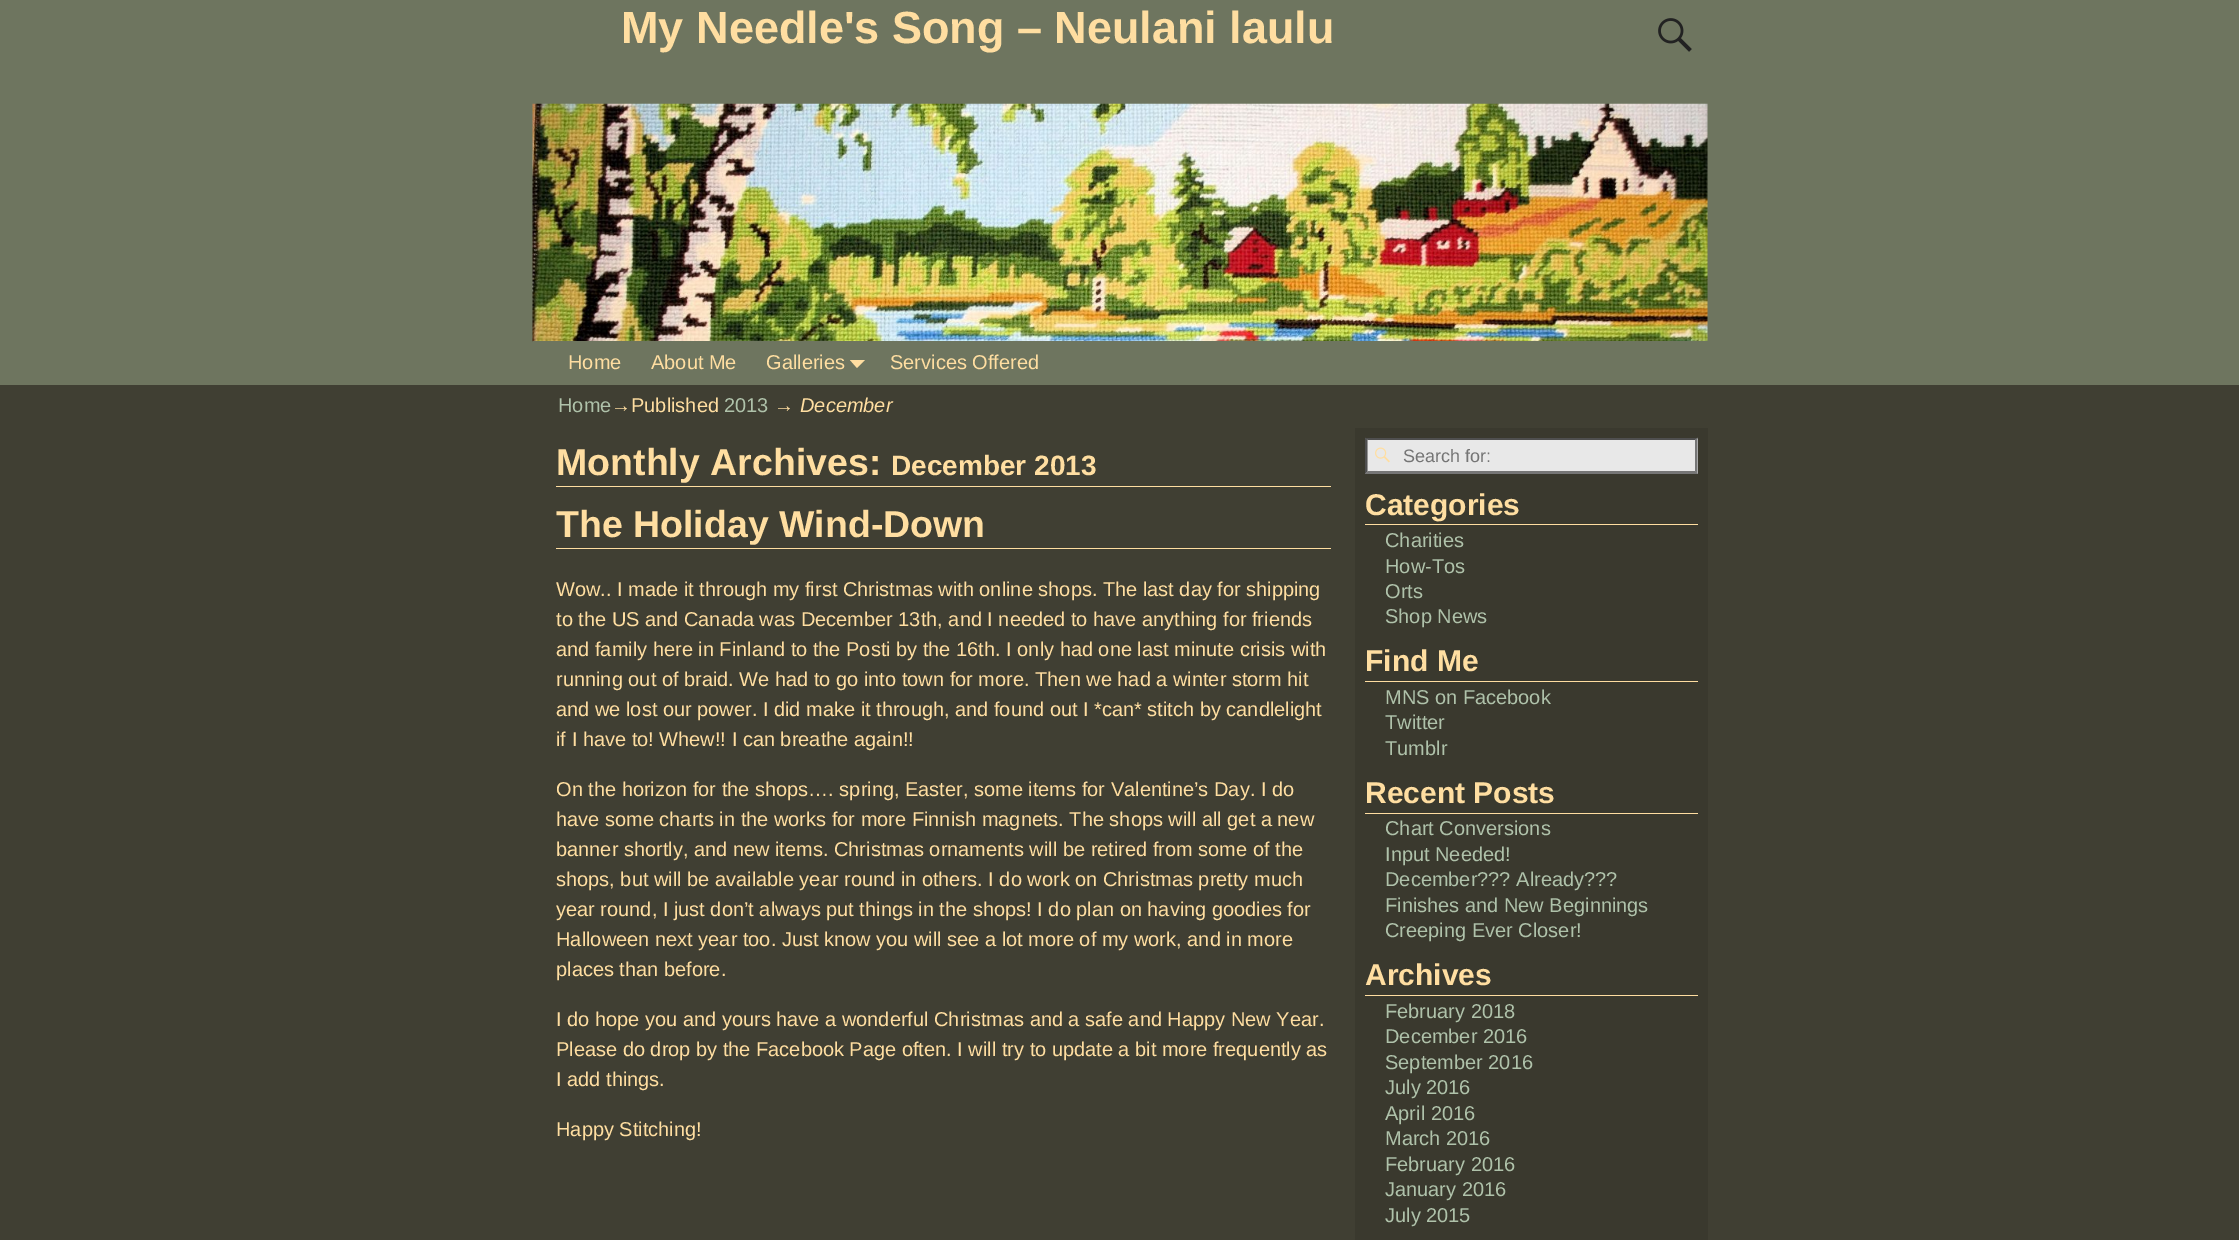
%!PS-Adobe-3.0
%%BoundingBox: 0 0 2239 1240
%%LanguageLevel: 3
%%Pages: 1
%%EndComments
%%BeginProlog
/setink { dup -16 bitshift 255 div exch dup -8 bitshift 255 and 255 div exch 255 and 255 div setrgbcolor } def
/usefont { [ exch dup neg 0 0 3 -1 roll 0 0 ] selectfont } def
/drawimage { 5 dict begin { /h /w /y /x /name } { exch def } forall
  gsave x y translate w h scale
  w h 8 [w 0 0 h 0 0] name (r) file false 3 colorimage grestore end } def
%%EndProlog
%%BeginSetup
<< /PageSize [2239 1240] >> setpagedevice
%%EndSetup
%%Page: 1 1
0 1240 translate 1 -1 scale
4 setmiterlimit
16#6E755F setink
0 0 2239 1240 rectfill
/LiberationSans-Bold 45 usefont
16#FFDEA1 setink
621 43 moveto (My Needle's Song – Neulani laulu) show
(img1.raw) 1658 18 34 34 drawimage
(img2.raw) 532 103 1176 239 drawimage
16#6E755F setink
533 341 1175 1 rectfill
/LiberationSans-Regular 20 usefont
16#FFDEA1 setink
[
    [(Home) 568 369]
    [(About Me) 651 369]
    [(Galleries) 766 369]
] { aload pop moveto show } forall
850 360 moveto 865 360 lineto 857 368 lineto closepath fill
890 369 moveto (Services Offered) show
16#403F33 setink
0 385 2239 855 rectfill
16#AFC2AA setink
558 412 moveto (Home) show
16#FFDEA1 setink
611 412 moveto (→Published) show
16#AFC2AA setink
724 412 moveto (2013) show
16#FFDEA1 setink
774 412 moveto (→) show
/LiberationSans-Italic 20 usefont
800 412 moveto (December) show
556 486 775 1 rectfill
/LiberationSans-Bold 37.5 usefont
556 475 moveto (Monthly Archives:) show
/LiberationSans-Bold 28 usefont
891 475 moveto (December 2013) show
556 548 775 1 rectfill
/LiberationSans-Bold 37.5 usefont
556 537 moveto (The Holiday Wind-Down) show
/LiberationSans-Regular 20 usefont
[
    [(Wow.. I made it through my first Christmas with online shops. The last day for shipping) 556 596]
    [(to the US and Canada was December 13th, and I needed to have anything for friends) 556 626]
    [(and family here in Finland to the Posti by the 16th. I only had one last minute crisis with) 556 656]
    [(running out of braid. We had to go into town for more. Then we had a winter storm hit) 556 686]
    [(and we lost our power. I did make it through, and found out I *can* stitch by candlelight) 556 716]
    [(if I have to! Whew!! I can breathe again!!) 556 746]
    [(On the horizon for the shops…. spring, Easter, some items for Valentine’s Day. I do) 556 796]
    [(have some charts in the works for more Finnish magnets. The shops will all get a new) 556 826]
    [(banner shortly, and new items. Christmas ornaments will be retired from some of the) 556 856]
    [(shops, but will be available year round in others. I do work on Christmas pretty much) 556 886]
    [(year round, I just don’t always put things in the shops! I do plan on having goodies for) 556 916]
    [(Halloween next year too. Just know you will see a lot more of my work, and in more) 556 946]
    [(places than before.) 556 976]
    [(I do hope you and yours have a wonderful Christmas and a safe and Happy New Year.) 556 1026]
    [(Please do drop by the Facebook Page often. I will try to update a bit more frequently as) 556 1056]
    [(I add things.) 556 1086]
    [(Happy Stitching!) 556 1136]
] { aload pop moveto show } forall
16#3A392E setink
1355 428 353 812 rectfill
16#E8E8E8 setink
1365 438 333 36 rectfill
(img3.raw) 1375 447 15 16 drawimage
16#4F4F4F setink
1365 438 moveto 1698 438 lineto 1695 440 lineto 1368 440 lineto closepath fill
16#767676 setink
1697.5 437.5 moveto 1697.5 474 lineto 1695 471 lineto 1695 440 lineto closepath fill
1698 474 moveto 1365 474 lineto 1368 471 lineto 1695 471 lineto closepath fill
16#4F4F4F setink
1365 474 moveto 1365 437.5 lineto 1367.5 440 lineto 1367.5 471 lineto closepath fill
/LiberationSans-Regular 18 usefont
16#757575 setink
1403 462 moveto (Search for:) show
16#FFDEA1 setink
1365 524 333 1 rectfill
/LiberationSans-Bold 30 usefont
1365 515 moveto (Categories) show
/LiberationSans-Regular 20 usefont
16#AFC2AA setink
[
    [(Charities) 1385 547]
    [(How-Tos) 1385 573]
    [(Orts) 1385 598]
    [(Shop News) 1385 623]
] { aload pop moveto show } forall
16#FFDEA1 setink
1365 681 333 1 rectfill
/LiberationSans-Bold 30 usefont
1365 671 moveto (Find Me) show
/LiberationSans-Regular 20 usefont
16#AFC2AA setink
[
    [(MNS on Facebook) 1385 704]
    [(Twitter) 1385 729]
    [(Tumblr) 1385 755]
] { aload pop moveto show } forall
16#FFDEA1 setink
1365 813 333 1 rectfill
/LiberationSans-Bold 30 usefont
1365 803 moveto (Recent Posts) show
/LiberationSans-Regular 20 usefont
16#AFC2AA setink
[
    [(Chart Conversions) 1385 835]
    [(Input Needed!) 1385 861]
    [(December??? Already???) 1385 886]
    [(Finishes and New Beginnings) 1385 912]
    [(Creeping Ever Closer!) 1385 937]
] { aload pop moveto show } forall
16#FFDEA1 setink
1365 995 333 1 rectfill
/LiberationSans-Bold 30 usefont
1365 985 moveto (Archives) show
/LiberationSans-Regular 20 usefont
16#AFC2AA setink
[
    [(February 2018) 1385 1018]
    [(December 2016) 1385 1043]
    [(September 2016) 1385 1069]
    [(July 2016) 1385 1094]
    [(April 2016) 1385 1120]
    [(March 2016) 1385 1145]
    [(February 2016) 1385 1171]
    [(January 2016) 1385 1196]
    [(July 2015) 1385 1222]
] { aload pop moveto show } forall
showpage
%%EOF
